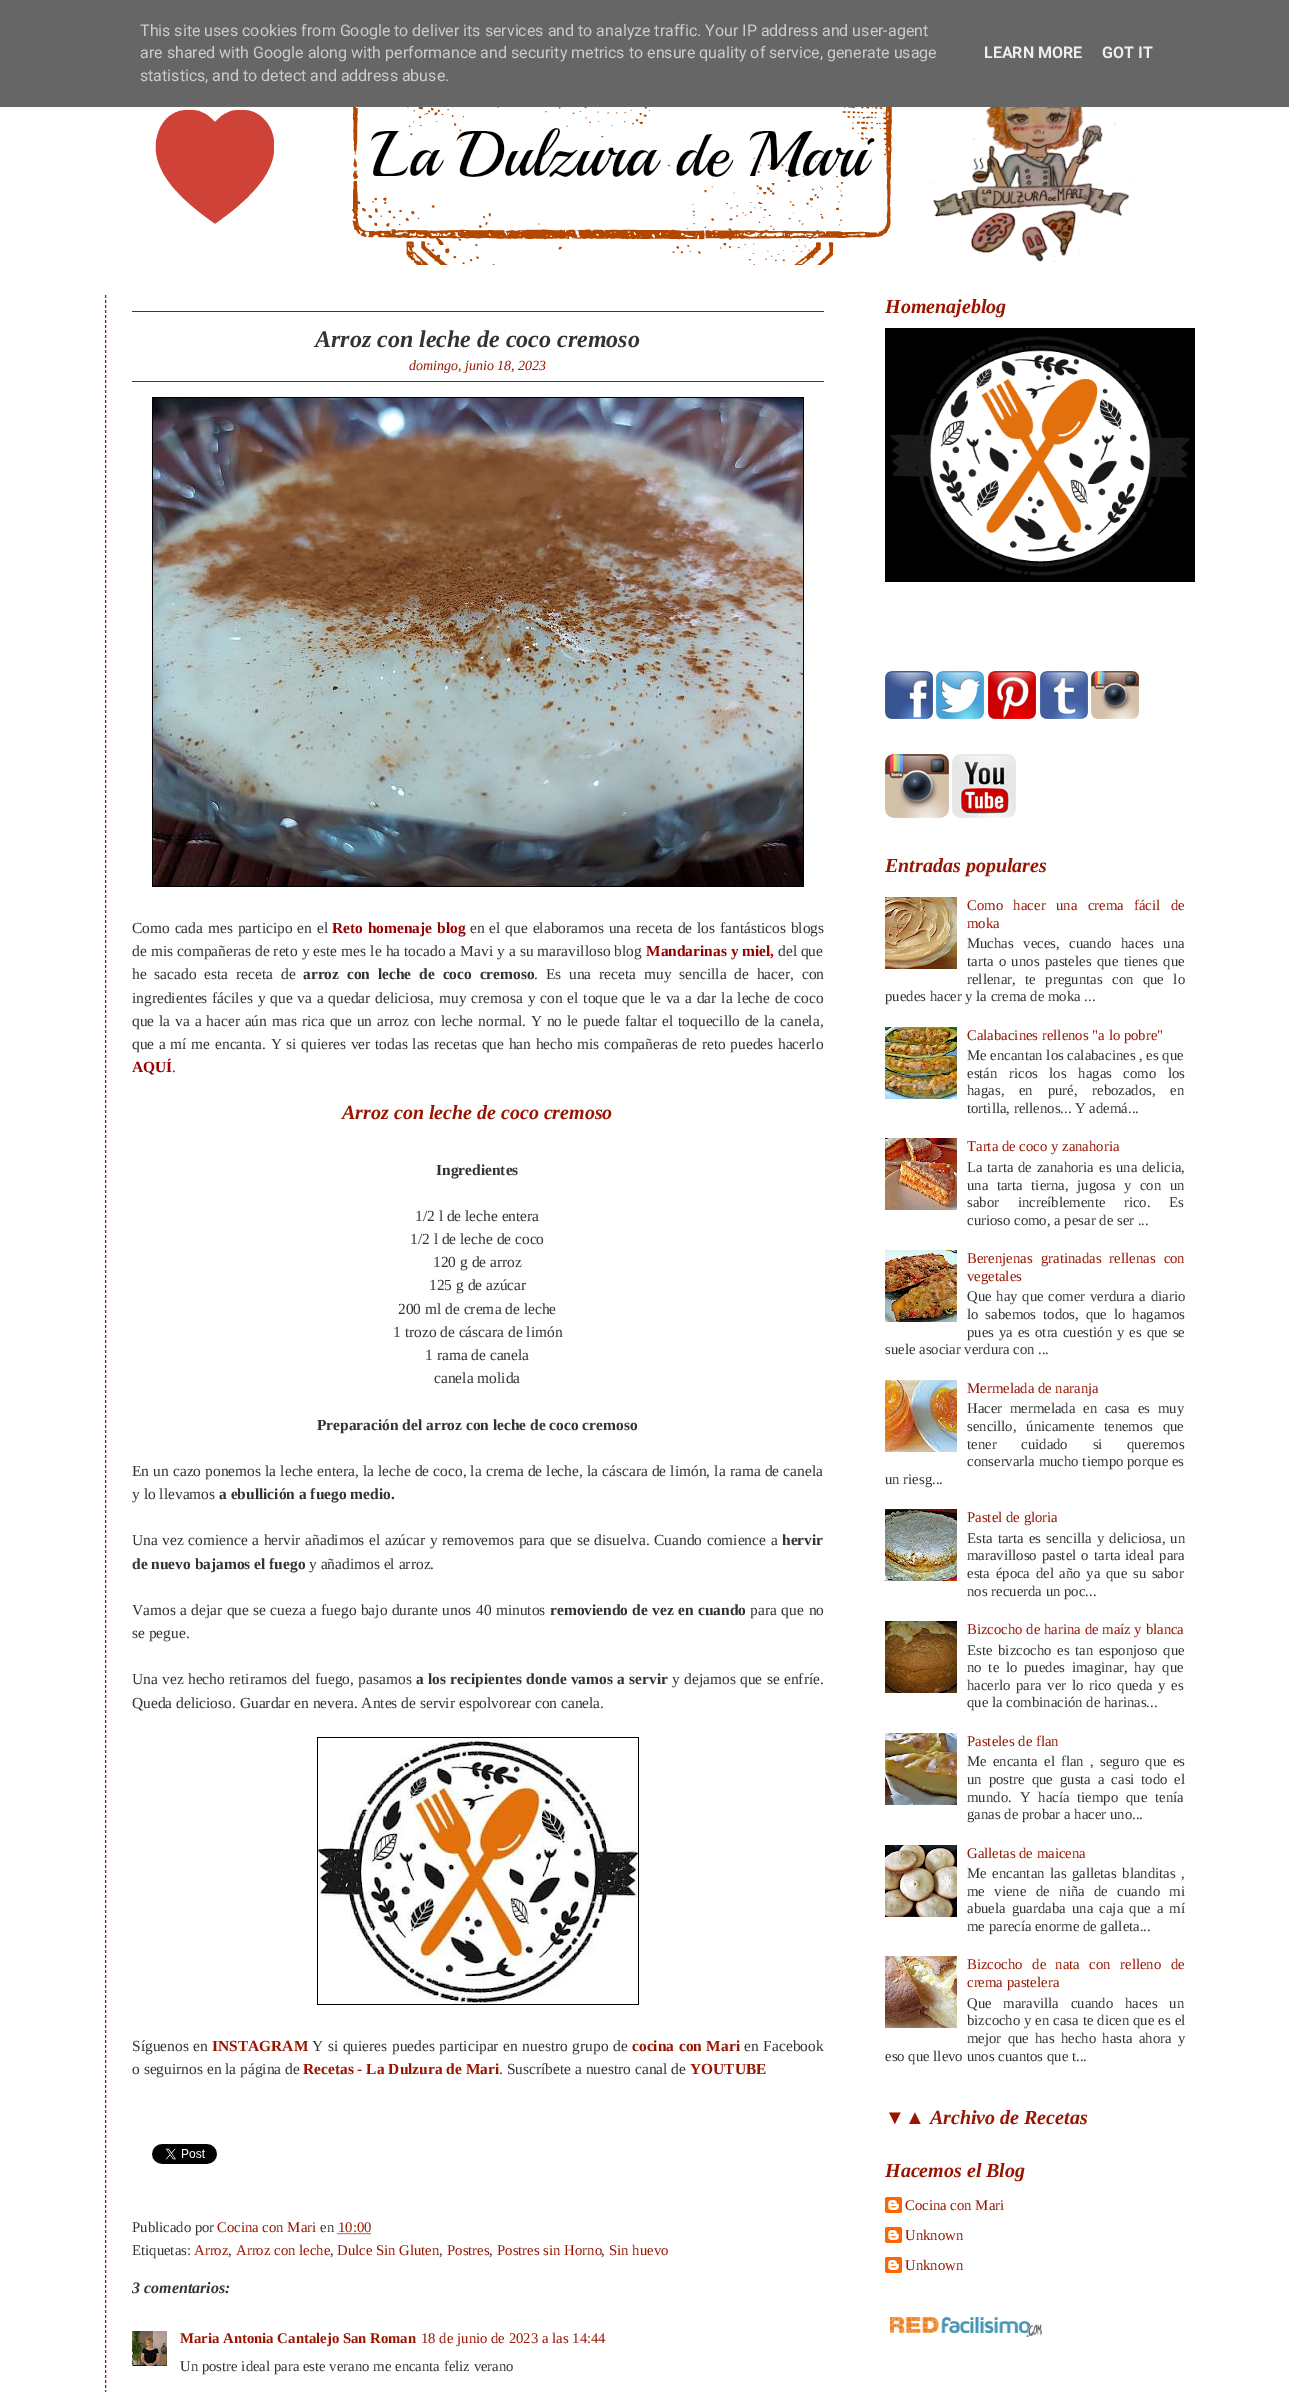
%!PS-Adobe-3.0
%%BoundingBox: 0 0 1289 2392
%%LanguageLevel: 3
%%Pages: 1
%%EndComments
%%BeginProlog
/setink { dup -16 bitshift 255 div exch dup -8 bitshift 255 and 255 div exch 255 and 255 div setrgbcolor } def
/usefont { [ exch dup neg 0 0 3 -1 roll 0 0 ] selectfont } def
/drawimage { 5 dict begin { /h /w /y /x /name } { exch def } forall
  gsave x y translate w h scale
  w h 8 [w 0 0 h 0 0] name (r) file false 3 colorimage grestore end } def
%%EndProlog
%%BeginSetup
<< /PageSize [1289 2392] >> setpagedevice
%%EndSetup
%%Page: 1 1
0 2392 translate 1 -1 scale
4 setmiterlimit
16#FFFFFF setink
0 0 1289 2392 rectfill
16#666666 setink
0 0 1289 107 rectfill
/Roboto-Regular 16 usefont
16#CCCCCC setink
[
    [(This site uses cookies from Google to deliver its services and to analyze traffic. Your IP address and user-agent) 140 36]
    [(are shared with Google along with performance and security metrics to ensure quality of service, generate usage) 140 58]
    [(statistics, and to detect and address abuse.) 140 81]
] { aload pop moveto show } forall
/Roboto-Bold 16 usefont
16#EEEEEE setink
984 58 moveto (LEARN MORE) show
1102 58 moveto (GOT IT) show
(img1.raw) 155 107 976 158 drawimage
16#991500 setink
[3 2] 0 setdash
105.5 295 moveto 105.5 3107 lineto stroke
132 311 692 1 rectfill
/LiberationSerif-BoldItalic 24 usefont
16#333333 setink
315 347 moveto (Arroz con leche de coco cremoso) show
/LiberationSerif-Italic 14 usefont
16#991500 setink
409 370 moveto (domingo, junio 18, 2023) show
132 381 692 1 rectfill
16#000000 setink
152 397 652 490 rectfill
(img2.raw) 153 398 650 488 drawimage
/LiberationSerif-Regular 15.45 usefont
16#333333 setink
132 933 moveto 1 0 32 (Como cada mes participo en el) widthshow
/LiberationSerif-Bold 15.45 usefont
16#990000 setink
332 933 moveto 1 0 32 (Reto homenaje blog) widthshow
/LiberationSerif-Regular 15.45 usefont
16#333333 setink
470 933 moveto 1 0 32 (en el que elaboramos una receta de los fantásticos blogs) widthshow
132 956 moveto 0.2 0 32 (de mis compañeras de reto y este mes le ha tocado a Mavi y a su maravilloso blog) widthshow
/LiberationSerif-Bold 15.45 usefont
16#990000 setink
646 956 moveto (Mandarinas y miel) show
16#CC0000 setink
770 956 moveto (,) show
/LiberationSerif-Regular 15.45 usefont
16#333333 setink
778 956 moveto (del que) show
132 979 moveto 4 0 32 (he sacado esta receta de) widthshow
/LiberationSerif-Bold 15.45 usefont
303 979 moveto 4 0 32 (arroz con leche de coco cremoso) widthshow
/LiberationSerif-Regular 15.45 usefont
534 979 moveto 4 0 32 (. Es una receta muy sencilla de hacer, con) widthshow
132 1003 moveto 1 0 32 (ingredientes fáciles y que va a quedar deliciosa, muy cremosa y con el toque que le va a dar la leche de coco) widthshow
132 1026 moveto 1 0 32 (que la va a hacer aún mas rica que un arroz con leche normal. Y no le puede faltar el toquecillo de la canela,) widthshow
132 1049 moveto 0.8 0 32 (que a mí me encanta. Y si quieres ver todas las recetas que han hecho mis compañeras de reto puedes hacerlo) widthshow
/LiberationSerif-Bold 15.45 usefont
16#990000 setink
132 1072 moveto (AQUÍ) show
/LiberationSerif-Regular 15.45 usefont
16#333333 setink
172 1072 moveto (.) show
/LiberationSerif-BoldItalic 20 usefont
16#991500 setink
342 1119 moveto (Arroz con leche de coco cremoso) show
/LiberationSerif-Bold 15.45 usefont
16#333333 setink
436 1175 moveto (Ingredientes) show
/LiberationSerif-Regular 15.45 usefont
[
    [(1/2 l de leche entera) 415 1221]
    [(1/2 l de leche de coco) 410 1244]
    [(120 g de arroz) 433 1267]
    [(125 g de azúcar) 429 1290]
    [(200 ml de crema de leche) 398 1314]
    [(1 trozo de cáscara de limón) 393 1337]
    [(1 rama de canela) 425 1360]
    [(canela molida) 434 1383]
] { aload pop moveto show } forall
/LiberationSerif-Bold 15.45 usefont
317 1430 moveto (Preparación del arroz con leche de coco cremoso) show
/LiberationSerif-Regular 15.45 usefont
132 1476 moveto 0.25 0 32 (En un cazo ponemos la leche entera, la leche de coco, la crema de leche, la cáscara de limón, la rama de canela) widthshow
132 1499 moveto (y lo llevamos) show
/LiberationSerif-Bold 15.45 usefont
219 1499 moveto (a ebullición a fuego medio.) show
/LiberationSerif-Regular 15.45 usefont
132 1545 moveto 0.75 0 32 (Una vez comience a hervir añadimos el azúcar y removemos para que se disuelva. Cuando comience a) widthshow
/LiberationSerif-Bold 15.45 usefont
782 1545 moveto (hervir) show
132 1569 moveto (de nuevo bajamos el fuego) show
/LiberationSerif-Regular 15.45 usefont
309 1569 moveto (y añadimos el arroz.) show
132 1615 moveto 0.5 0 32 (Vamos a dejar que se cueza a fuego bajo durante unos 40 minutos) widthshow
/LiberationSerif-Bold 15.45 usefont
550 1615 moveto 0.5 0 32 (removiendo de vez en cuando) widthshow
/LiberationSerif-Regular 15.45 usefont
750 1615 moveto 1 0 32 (para que no) widthshow
132 1638 moveto (se pegue.) show
132 1684 moveto 0.5 0 32 (Una vez hecho retiramos del fuego, pasamos) widthshow
/LiberationSerif-Bold 15.45 usefont
416 1684 moveto 0.5 0 32 (a los recipientes donde vamos a servir) widthshow
/LiberationSerif-Regular 15.45 usefont
672 1684 moveto 0.5 0 32 (y dejamos que se enfríe.) widthshow
132 1708 moveto (Queda delicioso. Guardar en nevera. Antes de servir espolvorear con canela.) show
16#000000 setink
317 1737 322 268 rectfill
(img3.raw) 318 1738 320 266 drawimage
16#333333 setink
132 2051 moveto 1 0 32 (Síguenos en) widthshow
/LiberationSerif-Bold 15.45 usefont
16#991500 setink
212 2051 moveto (INSTAGRAM) show
/LiberationSerif-Regular 15.45 usefont
16#333333 setink
312 2051 moveto 0.75 0 32 (Y si quieres puedes participar en nuestro grupo de) widthshow
/LiberationSerif-Bold 15.45 usefont
16#991500 setink
632 2051 moveto 0.75 0 32 (cocina con Mari) widthshow
/LiberationSerif-Regular 15.45 usefont
16#333333 setink
744 2051 moveto 1 0 32 (en Facebook) widthshow
132 2074 moveto (o seguirnos en la página de) show
/LiberationSerif-Bold 15.45 usefont
16#991500 setink
303 2074 moveto (Recetas - La Dulzura de Mari) show
/LiberationSerif-Regular 15.45 usefont
16#333333 setink
499 2074 moveto (. Suscríbete a nuestro canal de) show
/LiberationSerif-Bold 15.45 usefont
16#991500 setink
690 2074 moveto (YOUTUBE) show
(img4.raw) 152 2144 65 20 drawimage
/LiberationSerif-Regular 14.75 usefont
16#333333 setink
132 2232 moveto (Publicado por) show
16#991500 setink
217 2232 moveto (Cocina con Mari) show
16#333333 setink
320 2232 moveto (en) show
16#991500 setink
[1 1] 0 setdash
337.5 2233.5 moveto 371 2233.5 lineto stroke
338 2232 moveto (10:00) show
16#333333 setink
132 2255 moveto (Etiquetas:) show
16#991500 setink
194 2255 moveto (Arroz) show
16#333333 setink
228 2255 moveto (,) show
16#991500 setink
236 2255 moveto (Arroz con leche) show
16#333333 setink
330 2255 moveto (,) show
16#991500 setink
337 2255 moveto (Dulce Sin Gluten) show
16#333333 setink
439 2255 moveto (,) show
16#991500 setink
447 2255 moveto (Postres) show
16#333333 setink
489 2255 moveto (,) show
16#991500 setink
497 2255 moveto (Postres sin Horno) show
16#333333 setink
601 2255 moveto (,) show
16#991500 setink
609 2255 moveto (Sin huevo) show
/LiberationSerif-BoldItalic 16 usefont
16#333333 setink
132 2293 moveto (3 comentarios:) show
(img5.raw) 132 2331 35 35 drawimage
/LiberationSerif-Bold 14.75 usefont
16#991500 setink
180 2343 moveto (Maria Antonia Cantalejo San Roman) show
/LiberationSerif-Regular 14.75 usefont
421 2343 moveto (18 de junio de 2023 a las 14:44) show
16#333333 setink
180 2371 moveto (Un postre ideal para este verano me encanta feliz verano) show
/LiberationSerif-BoldItalic 20 usefont
16#991500 setink
885 313 moveto (Homenajeblog) show
16#000000 setink
885 328 310 254 rectfill
(img6.raw) 890 336 300 240 drawimage
(img7.raw) 885 671 48 48 drawimage
(img8.raw) 936 671 48 48 drawimage
(img9.raw) 988 671 48 48 drawimage
(img10.raw) 1040 671 48 48 drawimage
(img11.raw) 1091 671 48 48 drawimage
(img12.raw) 885 754 64 64 drawimage
(img13.raw) 952 754 64 64 drawimage
16#991500 setink
885 872 moveto (Entradas populares) show
(img14.raw) 885 897 72 72 drawimage
/LiberationSerif-Regular 14.75 usefont
967 910 moveto 6.75 0 32 (Como hacer una crema fácil de) widthshow
967 928 moveto (moka) show
16#333333 setink
967 948 moveto 5.75 0 32 (Muchas veces, cuando haces una) widthshow
967 966 moveto 1.75 0 32 (tarta o unos pasteles que tienes que) widthshow
967 984 moveto 5.75 0 32 (rellenar, te preguntas con que lo) widthshow
885 1001 moveto (puedes hacer y la crema de moka ...) show
(img15.raw) 885 1027 72 72 drawimage
16#991500 setink
967 1040 moveto (Calabacines rellenos "a lo pobre") show
16#333333 setink
967 1060 moveto (Me encantan los calabacines , es que) show
967 1078 moveto 8 0 32 (están ricos los hagas como los) widthshow
967 1095 moveto 11 0 32 (hagas, en puré, rebozados, en) widthshow
967 1113 moveto (tortilla, rellenos... Y ademá...) show
(img16.raw) 885 1138 72 72 drawimage
16#991500 setink
967 1151 moveto (Tarta de coco y zanahoria) show
16#333333 setink
967 1172 moveto 1 0 32 (La tarta de zanahoria) widthshow
1099 1172 moveto 1 0 32 (es una delicia,) widthshow
967 1190 moveto 4.75 0 32 (una tarta tierna, jugosa y con un) widthshow
967 1207 moveto 15 0 32 (sabor increíblemente rico. Es) widthshow
967 1225 moveto (curioso como, a pesar de ser ...) show
(img17.raw) 885 1250 72 72 drawimage
16#991500 setink
967 1263 moveto 4.5 0 32 (Berenjenas gratinadas rellenas con) widthshow
967 1281 moveto (vegetales) show
16#333333 setink
967 1301 moveto 1 0 32 (Que hay que comer verdura a diario) widthshow
967 1319 moveto 3.25 0 32 (lo sabemos todos, que lo hagamos) widthshow
967 1337 moveto 1.25 0 32 (pues ya es otra cuestión y es que se) widthshow
885 1354 moveto (suele asociar verdura con ...) show
(img18.raw) 885 1380 72 72 drawimage
16#991500 setink
967 1393 moveto (Mermelada de naranja) show
16#333333 setink
967 1413 moveto 4 0 32 (Hacer mermelada en casa es muy) widthshow
967 1431 moveto 6 0 32 (sencillo, únicamente tenemos que) widthshow
967 1449 moveto 21 0 32 (tener cuidado si queremos) widthshow
967 1466 moveto (conservarla mucho tiempo porque es) show
885 1484 moveto (un riesg...) show
(img19.raw) 885 1509 72 72 drawimage
16#991500 setink
967 1522 moveto (Pastel de gloria) show
16#333333 setink
967 1543 moveto 1.5 0 32 (Esta tarta es sencilla y deliciosa, un) widthshow
967 1560 moveto 1.5 0 32 (maravilloso pastel o tarta ideal para) widthshow
967 1578 moveto 2 0 32 (esta época del año ya que su sabor) widthshow
967 1596 moveto (nos recuerda un poc...) show
(img20.raw) 885 1621 72 72 drawimage
16#991500 setink
967 1634 moveto (Bizcocho de harina de maíz y blanca) show
16#333333 setink
967 1655 moveto 2 0 32 (Este bizcocho es tan esponjoso que) widthshow
967 1672 moveto 3 0 32 (no te lo puedes imaginar, hay que) widthshow
967 1690 moveto 2 0 32 (hacerlo para ver lo rico queda y es) widthshow
967 1707 moveto (que la combinación de harinas...) show
(img21.raw) 885 1733 72 72 drawimage
16#991500 setink
967 1746 moveto (Pasteles de flan) show
16#333333 setink
967 1766 moveto 2.5 0 32 (Me encanta el flan , seguro que es) widthshow
967 1784 moveto 3.25 0 32 (un postre que gusta a casi todo el) widthshow
967 1802 moveto 4.25 0 32 (mundo. Y hacía tiempo que tenía) widthshow
967 1819 moveto (ganas de probar a hacer uno...) show
(img22.raw) 885 1845 72 72 drawimage
16#991500 setink
967 1858 moveto (Galletas de maicena) show
16#333333 setink
967 1878 moveto 1.75 0 32 (Me encantan las galletas blanditas ,) widthshow
967 1896 moveto 5.75 0 32 (me viene de niña de cuando mi) widthshow
967 1913 moveto 2.5 0 32 (abuela guardaba una caja que a mí) widthshow
967 1931 moveto (me parecía enorme de galleta...) show
(img23.raw) 885 1956 72 72 drawimage
16#991500 setink
967 1969 moveto 5.75 0 32 (Bizcocho de nata con relleno de) widthshow
967 1987 moveto (crema pastelera) show
16#333333 setink
967 2008 moveto 8 0 32 (Que maravilla cuando haces un) widthshow
967 2025 moveto 0.25 0 32 (bizcocho y en casa te dicen que es el) widthshow
967 2043 moveto 2.5 0 32 (mejor que has hecho hasta ahora y) widthshow
885 2061 moveto (eso que llevo unos cuantos que t...) show
/LiberationSerif-BoldItalic 20 usefont
16#991500 setink
885 2124 moveto (▼▲ Archivo de Recetas) show
885 2177 moveto (Hacemos el Blog) show
(img24.raw) 885 2197 17 16 drawimage
/LiberationSerif-Regular 14.75 usefont
905 2210 moveto (Cocina con Mari) show
(img24.raw) 885 2227 17 16 drawimage
905 2240 moveto (Unknown) show
(img24.raw) 885 2257 17 16 drawimage
905 2270 moveto (Unknown) show
(img25.raw) 890 2317 152 20 drawimage
showpage
%%EOF
